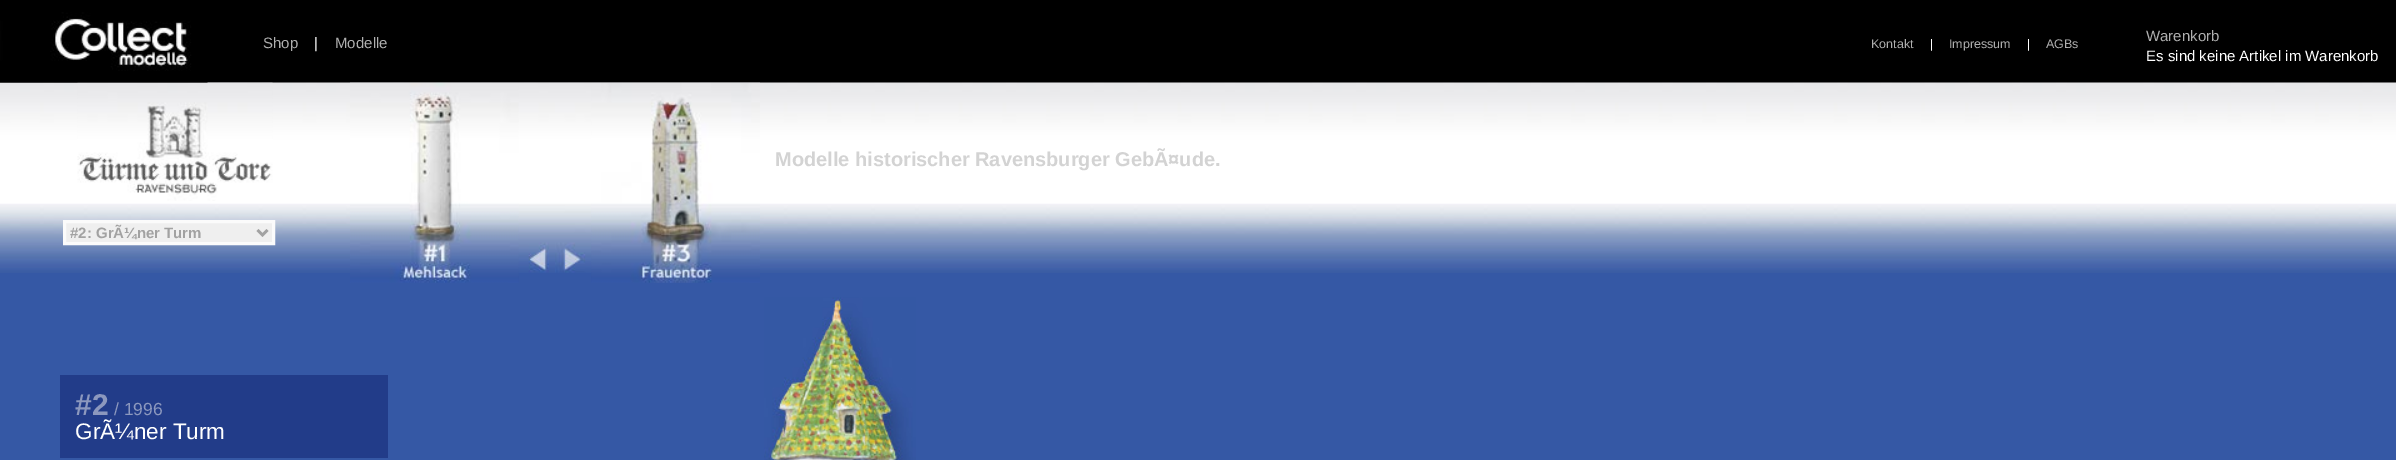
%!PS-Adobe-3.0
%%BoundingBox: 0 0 2396 460
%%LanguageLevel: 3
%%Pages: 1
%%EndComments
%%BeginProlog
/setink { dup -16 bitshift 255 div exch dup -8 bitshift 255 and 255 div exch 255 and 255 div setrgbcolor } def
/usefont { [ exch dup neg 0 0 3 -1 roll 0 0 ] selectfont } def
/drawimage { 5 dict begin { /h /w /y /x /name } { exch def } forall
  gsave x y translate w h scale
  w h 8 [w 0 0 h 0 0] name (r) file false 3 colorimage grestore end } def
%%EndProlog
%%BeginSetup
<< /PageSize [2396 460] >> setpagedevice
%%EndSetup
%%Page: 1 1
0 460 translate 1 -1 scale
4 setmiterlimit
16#3558A5 setink
0 0 2396 460 rectfill
16#000000 setink
0 0 2396 83 rectfill
(img2.raw) 0 82 2396 191 drawimage
(img3.raw) 77 82 196 119 drawimage
(img1.raw) 0 12 208 71 drawimage
/LiberationSans-Regular 15 usefont
16#AFAFAF setink
263 48 moveto (Shop) show
16#FFFFFF setink
314 48 moveto (|) show
16#AFAFAF setink
335 48 moveto (Modelle) show
/LiberationSans-Regular 12.5 usefont
1871 48 moveto (Kontakt) show
16#FFFFFF setink
1930 48 moveto (|) show
16#AFAFAF setink
1949 48 moveto (Impressum) show
16#FFFFFF setink
2027 48 moveto (|) show
16#AFAFAF setink
2046 48 moveto (AGBs) show
/LiberationSans-Regular 15 usefont
2146 41 moveto (Warenkorb) show
16#FFFFFF setink
2146 61 moveto (Es sind keine Artikel im Warenkorb) show
(img4.raw) 350 82 169 201 drawimage
(img5.raw) 518 82 37 191 drawimage
(img6.raw) 555 82 37 191 drawimage
(img7.raw) 591 82 169 201 drawimage
/LiberationSans-Bold 20 usefont
16#D3D3D3 setink
775 166 moveto (Modelle historischer Ravensburger GebÃ¤ude.) show
16#EFEFEF setink
64.5 221.5 moveto 273.5 221.5 lineto 273.5 243.5 lineto 64.5 243.5 lineto closepath gsave fill grestore
16#FBFBFB setink
3 setlinewidth
stroke
16#A2A2A2 setink
2.5 setlinewidth
257.5 230 moveto 262.5 235 lineto 267.5 230 lineto stroke
/LiberationSans-Bold 15 usefont
70 238 moveto (#2: GrÃ¼ner Turm) show
16#223C89 setink
60 375 328 83 rectfill
/LiberationSans-Bold 30 usefont
16#8C98BE setink
75 415 moveto (#2) show
/LiberationSans-Regular 17.5 usefont
114 415 moveto (/ 1996) show
/LiberationSans-Regular 22.5 usefont
16#FFFFFF setink
75 439 moveto (GrÃ¼ner Turm) show
(img8.raw) 764 297 152 163 drawimage
showpage
%%EOF
